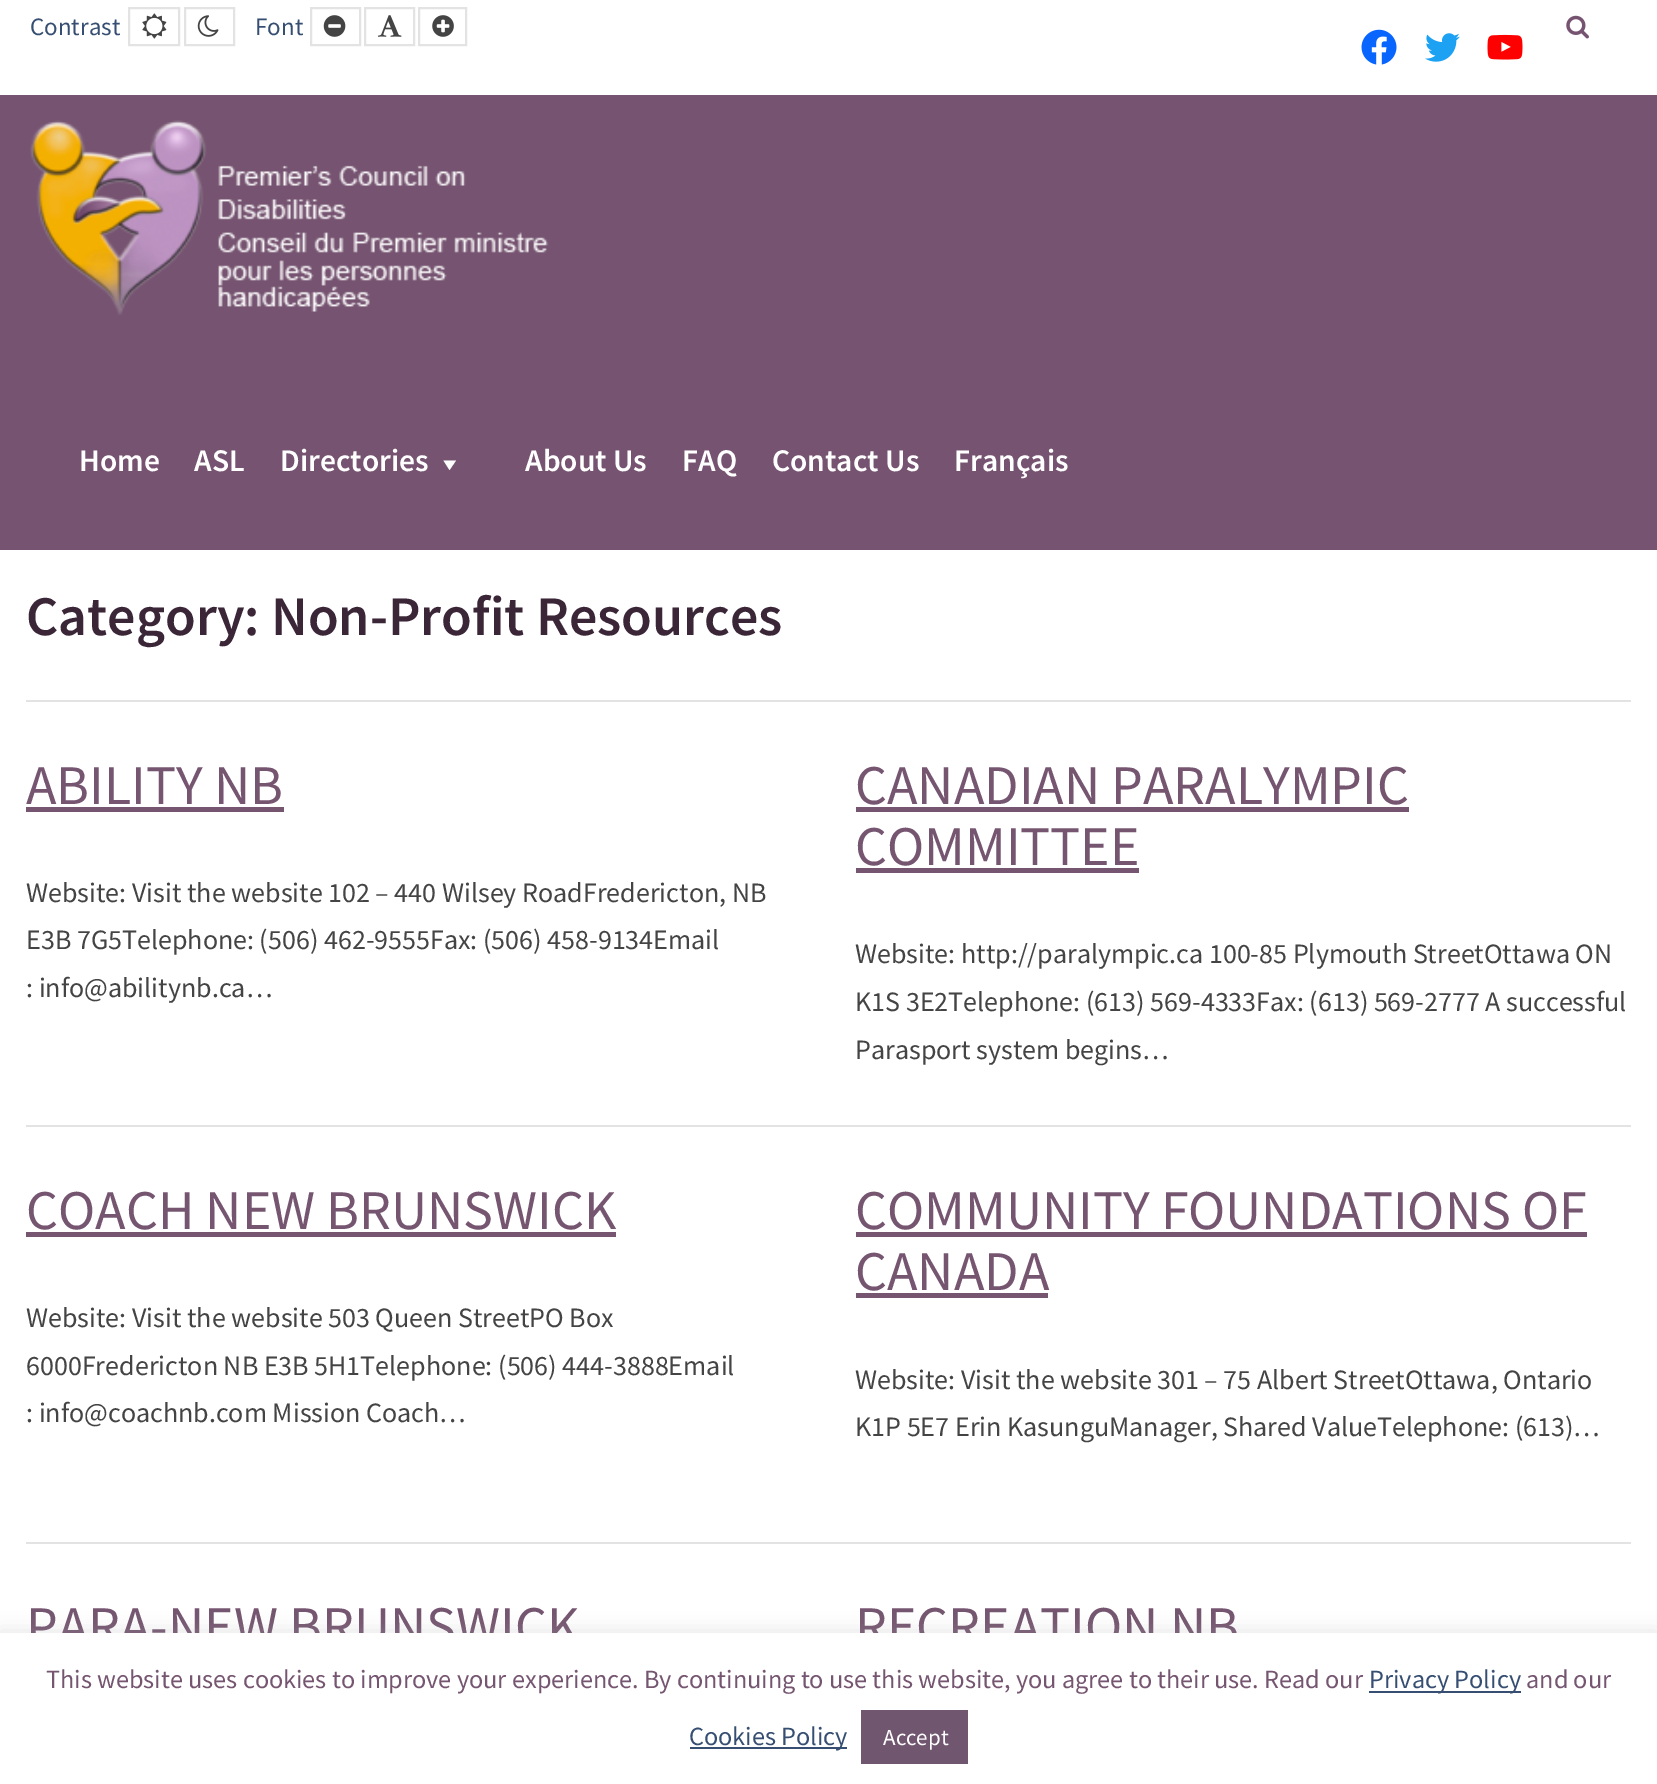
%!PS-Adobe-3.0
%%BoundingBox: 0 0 1657 1784
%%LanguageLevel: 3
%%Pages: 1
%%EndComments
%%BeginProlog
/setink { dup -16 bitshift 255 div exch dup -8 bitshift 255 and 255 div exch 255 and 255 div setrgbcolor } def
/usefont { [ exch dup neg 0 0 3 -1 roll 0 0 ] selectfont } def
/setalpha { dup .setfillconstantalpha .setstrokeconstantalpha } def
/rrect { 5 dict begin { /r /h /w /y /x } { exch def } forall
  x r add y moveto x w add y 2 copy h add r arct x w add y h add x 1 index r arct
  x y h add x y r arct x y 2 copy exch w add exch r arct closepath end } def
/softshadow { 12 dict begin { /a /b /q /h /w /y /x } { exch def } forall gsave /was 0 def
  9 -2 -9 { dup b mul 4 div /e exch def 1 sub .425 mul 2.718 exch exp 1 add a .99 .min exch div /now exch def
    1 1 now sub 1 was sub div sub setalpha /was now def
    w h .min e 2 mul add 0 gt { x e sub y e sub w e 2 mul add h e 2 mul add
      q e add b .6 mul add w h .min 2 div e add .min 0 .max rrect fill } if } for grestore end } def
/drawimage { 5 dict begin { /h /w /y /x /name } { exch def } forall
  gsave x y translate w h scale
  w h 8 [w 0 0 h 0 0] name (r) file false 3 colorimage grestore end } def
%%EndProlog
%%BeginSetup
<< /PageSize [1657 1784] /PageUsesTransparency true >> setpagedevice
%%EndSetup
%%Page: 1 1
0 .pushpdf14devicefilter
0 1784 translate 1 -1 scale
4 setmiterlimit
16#FFFFFF setink
0 0 1657 1784 rectfill
/SourceSansPro-Regular 25 usefont
16#364E72 setink
30 35 moveto (Contrast) show
16#E3E3E3 setink
2 setlinewidth
129 8 50 37 rectstroke
(img1.raw) 142 13 25 26 drawimage
185 8 49 37 rectstroke
(img2.raw) 197 15 22 22 drawimage
16#364E72 setink
255 35 moveto (Font) show
16#E3E3E3 setink
311 8 49 37 rectstroke
(img3.raw) 323 15 23 22 drawimage
365 8 49 37 rectstroke
(img4.raw) 378 15 24 22 drawimage
419 8 47 37 rectstroke
(img5.raw) 432 15 22 22 drawimage
(img6.raw) 1361 29 36 36 drawimage
(img7.raw) 1425 33 35 29 drawimage
(img8.raw) 1487 34 36 26 drawimage
(img9.raw) 1566 15 23 24 drawimage
16#765471 setink
0 95 1657 455 rectfill
(img10.raw) 30 120 519 195 drawimage
/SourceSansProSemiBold-SemiBold 31.5 usefont
16#FFFFFF setink
[
    [(Home) 79 471]
    [(ASL) 194 471]
    [(Directories) 280 471]
] { aload pop moveto show } forall
456 460.5 moveto 449.5 470 lineto 443.5 460.5 lineto closepath fill
[
    [(About Us) 525 471]
    [(FAQ) 682 471]
    [(Contact Us) 772 471]
    [(Français) 954 471]
] { aload pop moveto show } forall
/SourceSansProSemiBold-SemiBold 56 usefont
16#3A2637 setink
26 635 moveto (Category: Non-Profit Resources) show
16#E3E3E3 setink
26 700 1605 2 rectfill
/SourceSansPro-Regular 56 usefont
16#755570 setink
26 804 moveto (ABILITY NB) show
26 807 258 5 rectfill
/SourceSansPro-Regular 28 usefont
16#444444 setink
[
    [(Website: Visit the website 102 – 440 Wilsey RoadFredericton, NB) 26 902]
    [(E3B 7G5Telephone: \(506\) 462-9555Fax: \(506\) 458-9134Email) 26 949]
    [(: info@abilitynb.ca…) 26 997]
] { aload pop moveto show } forall
/SourceSansPro-Regular 56 usefont
16#755570 setink
855 804 moveto (CANADIAN PARALYMPIC) show
856 807 553 5 rectfill
855 865 moveto (COMMITTEE) show
856 868 283 5 rectfill
/SourceSansPro-Regular 28 usefont
16#444444 setink
[
    [(Website: http://paralympic.ca 100-85 Plymouth StreetOttawa ON) 855 963]
    [(K1S 3E2Telephone: \(613\) 569-4333Fax: \(613\) 569-2777 A successful) 855 1011]
    [(Parasport system begins…) 855 1059]
] { aload pop moveto show } forall
16#E3E3E3 setink
26 1125 1605 2 rectfill
/SourceSansPro-Regular 56 usefont
16#755570 setink
26 1229 moveto (COACH NEW BRUNSWICK) show
26 1232 590 5 rectfill
/SourceSansPro-Regular 28 usefont
16#444444 setink
[
    [(Website: Visit the website 503 Queen StreetPO Box) 26 1327]
    [(6000Fredericton NB E3B 5H1Telephone: \(506\) 444-3888Email) 26 1375]
    [(: info@coachnb.com Mission Coach…) 26 1422]
] { aload pop moveto show } forall
/SourceSansPro-Regular 56 usefont
16#755570 setink
855 1229 moveto (COMMUNITY FOUNDATIONS OF) show
856 1232 731 5 rectfill
855 1290 moveto (CANADA) show
856 1293 192 5 rectfill
/SourceSansPro-Regular 28 usefont
16#444444 setink
855 1389 moveto (Website: Visit the website 301 – 75 Albert StreetOttawa, Ontario) show
855 1436 moveto (K1P 5E7 Erin KasunguManager, Shared ValueTelephone: \(613\)…) show
16#E3E3E3 setink
26 1542 1605 2 rectfill
/SourceSansPro-Regular 56 usefont
16#755570 setink
26 1645 moveto (PARA-NEW BRUNSWICK) show
855 1645 moveto (RECREATION NB) show
16#ACABAB setink
0 1631 1657 152 0 9 0.3 softshadow
16#FFFFFF setink
0 1633 1657 151 rectfill
/SourceSansPro-Regular 26.25 usefont
16#755570 setink
46 1688 moveto (This website uses cookies to improve your experience. By continuing to use this website, you agree to their use. Read our) show
16#364E72 setink
1369 1691 152 2 rectfill
1369 1688 moveto (Privacy Policy) show
16#755570 setink
1526 1688 moveto (and our) show
16#364E72 setink
690 1747 157 2 rectfill
689 1745 moveto (Cookies Policy) show
16#71566F setink
861 1710 107 54 rectfill
/SourceSansPro-Regular 23 usefont
16#FFFFFF setink
883 1745 moveto (Accept) show
.poppdf14devicefilter showpage
%%EOF
